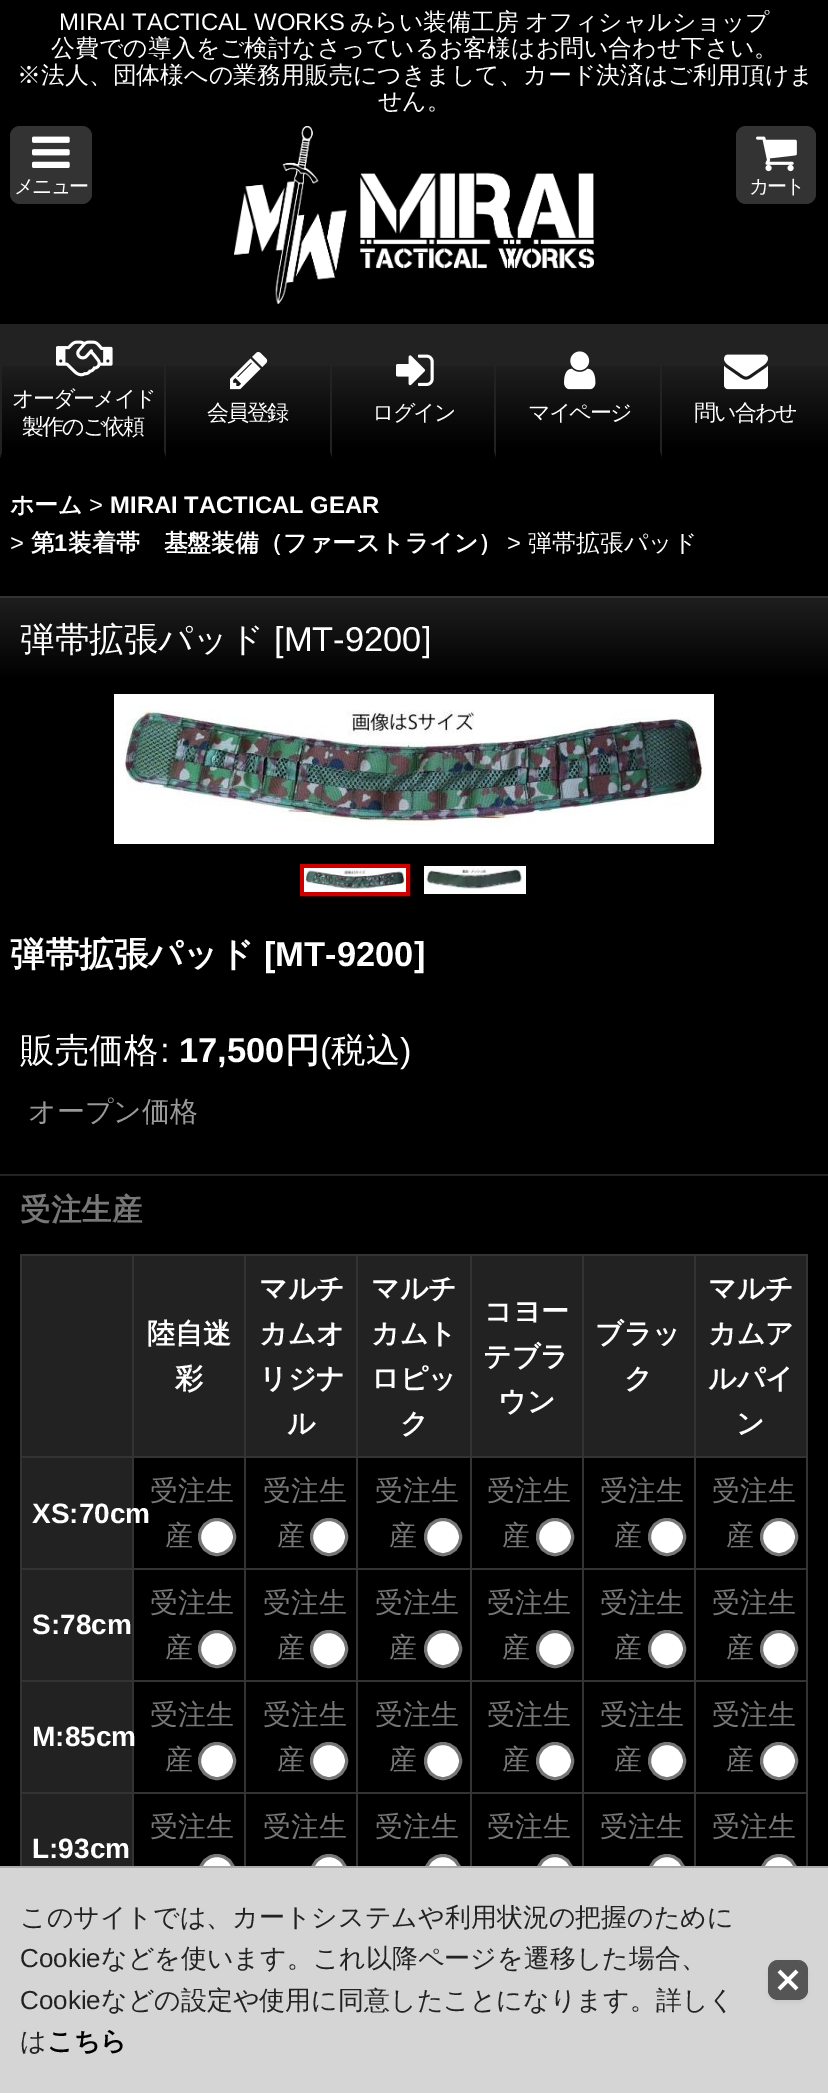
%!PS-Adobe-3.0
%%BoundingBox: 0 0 828 2093
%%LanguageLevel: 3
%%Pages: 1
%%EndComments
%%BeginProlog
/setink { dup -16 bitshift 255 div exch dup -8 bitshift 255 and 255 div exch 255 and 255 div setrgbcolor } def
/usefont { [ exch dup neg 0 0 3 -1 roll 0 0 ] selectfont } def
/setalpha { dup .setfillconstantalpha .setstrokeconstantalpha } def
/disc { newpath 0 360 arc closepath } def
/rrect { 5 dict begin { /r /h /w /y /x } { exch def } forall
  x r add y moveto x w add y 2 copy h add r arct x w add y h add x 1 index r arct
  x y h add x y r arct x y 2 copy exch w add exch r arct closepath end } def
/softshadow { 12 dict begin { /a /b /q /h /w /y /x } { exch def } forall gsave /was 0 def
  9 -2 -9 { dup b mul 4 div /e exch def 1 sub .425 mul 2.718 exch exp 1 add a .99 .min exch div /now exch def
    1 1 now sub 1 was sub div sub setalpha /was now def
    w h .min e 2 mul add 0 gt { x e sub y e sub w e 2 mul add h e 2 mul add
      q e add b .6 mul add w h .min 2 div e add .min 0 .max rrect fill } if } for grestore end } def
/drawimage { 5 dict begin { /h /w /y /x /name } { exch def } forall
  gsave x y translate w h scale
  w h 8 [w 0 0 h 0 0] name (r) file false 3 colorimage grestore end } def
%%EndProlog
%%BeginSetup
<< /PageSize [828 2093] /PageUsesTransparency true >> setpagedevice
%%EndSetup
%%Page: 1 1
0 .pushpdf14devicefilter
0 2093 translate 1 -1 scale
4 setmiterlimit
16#000000 setink
0 0 828 2093 rectfill
/LiberationSans-Regular 23.9 usefont
16#FFFFFF setink
59 30 moveto (MIRAI TACTICAL WORKS) show
/WenQuanYiZenHei-Medium 23.9 usefont
[
    [(みらい装備工房) 350 30]
    [(オフィシャルショップ) 525 30]
    [(公費での導入をご検討なさっているお客様はお問い合わせ下さい。) 51 56]
    [(※法人、団体様への業務用販売につきまして、カード決済はご利用頂けま) 17 83]
    [(せん。) 378 109]
] { aload pop moveto show } forall
16#333333 setink
10 126 82 78 10 rrect fill
(img1.raw) 32 136 38 32 drawimage
/WenQuanYiZenHei-Medium 20 usefont
16#FFFFFF setink
14 193 moveto -2 0 (メニュー) ashow
(img2.raw) 234 126 360 178 drawimage
16#333333 setink
736 126 80 78 10 rrect fill
(img3.raw) 756 136 41 36 drawimage
16#FFFFFF setink
749 193 moveto -2 0 (カート) ashow
16#222222 setink
0 324 662 134 rectfill
(img4.raw) 2 366 162 86 drawimage
16#000000 setink
166 458 moveto 0 458 lineto 2 452 lineto 164 452 lineto closepath fill
16#222222 setink
0 458 moveto 0 324 lineto 2 324 lineto 2 452 lineto closepath fill
(img5.raw) 56 340 57 37 drawimage
/WenQuanYiZenHei-Medium 22 usefont
16#FFFFFF setink
12 406 moveto -2 0 (オーダーメイド) ashow
22 434 moveto -2 0 (製作のご依頼) ashow
(img6.raw) 166 366 164 86 drawimage
16#000000 setink
332 458 moveto 166 458 lineto 166 452 lineto 330 452 lineto closepath fill
(img7.raw) 230 352 38 38 drawimage
16#FFFFFF setink
207 420 moveto -2 0 (会員登録) ashow
(img4.raw) 332 366 162 86 drawimage
16#000000 setink
496 458 moveto 332 458 lineto 332 452 lineto 494 452 lineto closepath fill
(img8.raw) 396 354 38 32 drawimage
16#FFFFFF setink
372 420 moveto -2 0 (ログイン) ashow
(img6.raw) 496 366 164 86 drawimage
16#000000 setink
662 458 moveto 496 458 lineto 496 452 lineto 660 452 lineto closepath fill
(img9.raw) 564 351 32 39 drawimage
16#FFFFFF setink
528 420 moveto -2 0 (マイページ) ashow
16#222222 setink
662 324 166 42 rectfill
(img10.raw) 662 366 166 86 drawimage
(img11.raw) 724 354 44 36 drawimage
16#FFFFFF setink
694 420 moveto -2 0 (問い合わせ) ashow
/WenQuanYiZenHei-Bold 23.9 usefont
10 513 moveto (ホーム) show
/LiberationSans-Regular 23.9 usefont
89 513 moveto (>) show
/LiberationSans-Bold 23.9 usefont
110 513 moveto (MIRAI TACTICAL GEAR) show
/LiberationSans-Regular 23.9 usefont
10 551 moveto (>) show
/WenQuanYiZenHei-Bold 23.9 usefont
31 551 moveto (第) show
/LiberationSans-Bold 23.9 usefont
54 551 moveto (1) show
/WenQuanYiZenHei-Bold 23.9 usefont
68 551 moveto (装着帯　基盤装備（ファーストライン）) show
/LiberationSans-Regular 23.9 usefont
507 551 moveto (>) show
/WenQuanYiZenHei-Medium 23.9 usefont
528 551 moveto (弾帯拡張パッド) show
(img12.raw) 0 598 828 86 drawimage
16#333333 setink
0 596 828 2 rectfill
/WenQuanYiZenHei-Medium 34.5 usefont
16#FFFFFF setink
20 651 moveto (弾帯拡張パッド) show
/LiberationSans-Regular 34.5 usefont
274 651 moveto ([MT-9200]) show
(img13.raw) 114 694 600 150 drawimage
16#CC0000 setink
4 setlinewidth
302 866 106 28 rectstroke
(img14.raw) 304 868 102 24 drawimage
(img15.raw) 424 866 102 28 drawimage
/WenQuanYiZenHei-Bold 34.5 usefont
16#FFFFFF setink
10 966 moveto (弾帯拡張パッド) show
/LiberationSans-Bold 34.5 usefont
264 966 moveto ([MT-9200]) show
16#222222 setink
0 1174 828 2 rectfill
/WenQuanYiZenHei-Medium 34.5 usefont
16#FFFFFF setink
20 1062 moveto (販売価格) show
/LiberationSans-Regular 34.5 usefont
160 1062 moveto (:) show
/LiberationSans-Bold 34.5 usefont
179 1062 moveto (17,500) show
/WenQuanYiZenHei-Bold 34.5 usefont
285 1062 moveto (円) show
/LiberationSans-Regular 34.5 usefont
320 1062 moveto (\() show
/WenQuanYiZenHei-Medium 34.5 usefont
331 1062 moveto (税込) show
/LiberationSans-Regular 34.5 usefont
400 1062 moveto (\)) show
/WenQuanYiZenHei-Medium 28 usefont
16#999999 setink
28 1121 moveto (オープン価格) show
/WenQuanYiZenHei-Bold 30.5 usefont
16#777777 setink
20 1220 moveto (受注生産) show
[
    [22 1256 110 200 16#222222]
    [694 1254 114 2 16#333333]
    [694 1456 114 2 16#333333]
    [694 1568 114 2 16#333333]
    [694 1680 114 2 16#333333]
    [694 1792 114 2 16#333333]
    [694 1792 2 74 16#333333]
    [582 1792 114 2 16#333333]
    [694 1680 2 114 16#333333]
    [582 1680 114 2 16#333333]
    [694 1568 2 114 16#333333]
    [582 1568 114 2 16#333333]
    [694 1456 2 114 16#333333]
    [582 1456 114 2 16#333333]
    [694 1254 2 204 16#333333]
    [582 1254 114 2 16#333333]
    [582 1792 2 74 16#333333]
    [470 1792 114 2 16#333333]
    [582 1680 2 114 16#333333]
    [470 1680 114 2 16#333333]
    [582 1568 2 114 16#333333]
    [470 1568 114 2 16#333333]
    [582 1456 2 114 16#333333]
    [470 1456 114 2 16#333333]
    [582 1254 2 204 16#333333]
    [470 1254 114 2 16#333333]
    [470 1792 2 74 16#333333]
    [356 1792 116 2 16#333333]
    [470 1680 2 114 16#333333]
    [356 1680 116 2 16#333333]
    [470 1568 2 114 16#333333]
    [356 1568 116 2 16#333333]
    [470 1456 2 114 16#333333]
    [356 1456 116 2 16#333333]
    [470 1254 2 204 16#333333]
    [356 1254 116 2 16#333333]
    [356 1792 2 74 16#333333]
    [244 1792 114 2 16#333333]
    [356 1680 2 114 16#333333]
    [244 1680 114 2 16#333333]
    [356 1568 2 114 16#333333]
    [244 1568 114 2 16#333333]
    [356 1456 2 114 16#333333]
    [244 1456 114 2 16#333333]
    [356 1254 2 204 16#333333]
    [244 1254 114 2 16#333333]
    [244 1792 2 74 16#333333]
    [132 1792 114 2 16#333333]
    [244 1680 2 114 16#333333]
    [132 1680 114 2 16#333333]
    [244 1568 2 114 16#333333]
    [132 1568 114 2 16#333333]
    [244 1456 2 114 16#333333]
    [132 1456 114 2 16#333333]
    [244 1254 2 204 16#333333]
    [132 1254 114 2 16#333333]
    [132 1792 2 74 16#333333]
    [20 1792 114 2 16#333333]
    [132 1680 2 114 16#333333]
    [20 1680 114 2 16#333333]
    [132 1568 2 114 16#333333]
    [20 1568 114 2 16#333333]
    [132 1456 2 114 16#333333]
    [20 1456 114 2 16#333333]
    [132 1254 2 204 16#333333]
    [20 1254 114 2 16#333333]
    [20 1792 2 74 16#333333]
    [20 1680 2 114 16#333333]
    [20 1568 2 114 16#333333]
    [20 1456 2 114 16#333333]
    [20 1254 2 204 16#333333]
    [134 1256 110 200 16#222222]
] { aload pop setink rectfill } forall
/WenQuanYiZenHei-Bold 28 usefont
16#FFFFFF setink
147 1343 moveto (陸自迷) show
175 1388 moveto (彩) show
16#222222 setink
246 1256 110 200 rectfill
16#FFFFFF setink
[
    [(マルチ) 259 1298]
    [(カムオ) 259 1343]
    [(リジナ) 259 1388]
    [(ル) 287 1433]
] { aload pop moveto show } forall
16#222222 setink
358 1256 112 200 rectfill
16#FFFFFF setink
[
    [(マルチ) 371 1298]
    [(カムト) 371 1343]
    [(ロピッ) 371 1388]
    [(ク) 400 1433]
] { aload pop moveto show } forall
16#222222 setink
472 1256 110 200 rectfill
16#FFFFFF setink
[
    [(コヨー) 484 1321]
    [(テブラ) 483 1366]
    [(ウン) 498 1411]
] { aload pop moveto show } forall
16#222222 setink
584 1256 110 200 rectfill
16#FFFFFF setink
595 1343 moveto (ブラッ) show
624 1388 moveto (ク) show
[
    [696 1256 110 200 16#222222]
    [806 1792 2 74 16#333333]
    [806 1680 2 114 16#333333]
    [806 1568 2 114 16#333333]
    [806 1456 2 114 16#333333]
    [806 1254 2 204 16#333333]
] { aload pop setink rectfill } forall
16#FFFFFF setink
[
    [(マルチ) 708 1298]
    [(カムア) 708 1343]
    [(ルパイ) 708 1388]
    [(ン) 736 1433]
] { aload pop moveto show } forall
16#222222 setink
22 1458 110 110 rectfill
/LiberationSans-Bold 28 usefont
16#FFFFFF setink
32 1523 moveto (XS:70cm) show
/WenQuanYiZenHei-Medium 28 usefont
16#777777 setink
150 1500 moveto (受注生) show
165 1545 moveto (産) show
16#FFFFFF setink
217 1537 17.5 disc gsave fill grestore
16#767676 setink
3 setlinewidth
stroke
16#777777 setink
263 1500 moveto (受注生) show
277 1545 moveto (産) show
16#FFFFFF setink
329 1537 17.5 disc gsave fill grestore
16#767676 setink
stroke
16#777777 setink
375 1500 moveto (受注生) show
389 1545 moveto (産) show
16#FFFFFF setink
443 1537 17.5 disc gsave fill grestore
16#767676 setink
stroke
16#777777 setink
487 1500 moveto (受注生) show
502 1545 moveto (産) show
16#FFFFFF setink
555 1537 17.5 disc gsave fill grestore
16#767676 setink
stroke
16#777777 setink
600 1500 moveto (受注生) show
614 1545 moveto (産) show
16#FFFFFF setink
667 1537 17.5 disc gsave fill grestore
16#767676 setink
stroke
16#777777 setink
712 1500 moveto (受注生) show
726 1545 moveto (産) show
16#FFFFFF setink
779 1537 17.5 disc gsave fill grestore
16#767676 setink
stroke
16#222222 setink
22 1570 110 110 rectfill
/LiberationSans-Bold 28 usefont
16#FFFFFF setink
32 1634 moveto (S:78cm) show
/WenQuanYiZenHei-Medium 28 usefont
16#777777 setink
150 1612 moveto (受注生) show
165 1657 moveto (産) show
16#FFFFFF setink
217 1649 17.5 disc gsave fill grestore
16#767676 setink
stroke
16#777777 setink
263 1612 moveto (受注生) show
277 1657 moveto (産) show
16#FFFFFF setink
329 1649 17.5 disc gsave fill grestore
16#767676 setink
stroke
16#777777 setink
375 1612 moveto (受注生) show
389 1657 moveto (産) show
16#FFFFFF setink
443 1649 17.5 disc gsave fill grestore
16#767676 setink
stroke
16#777777 setink
487 1612 moveto (受注生) show
502 1657 moveto (産) show
16#FFFFFF setink
555 1649 17.5 disc gsave fill grestore
16#767676 setink
stroke
16#777777 setink
600 1612 moveto (受注生) show
614 1657 moveto (産) show
16#FFFFFF setink
667 1649 17.5 disc gsave fill grestore
16#767676 setink
stroke
16#777777 setink
712 1612 moveto (受注生) show
726 1657 moveto (産) show
16#FFFFFF setink
779 1649 17.5 disc gsave fill grestore
16#767676 setink
stroke
16#222222 setink
22 1682 110 110 rectfill
/LiberationSans-Bold 28 usefont
16#FFFFFF setink
32 1746 moveto (M:85cm) show
/WenQuanYiZenHei-Medium 28 usefont
16#777777 setink
150 1724 moveto (受注生) show
165 1769 moveto (産) show
16#FFFFFF setink
217 1761 17.5 disc gsave fill grestore
16#767676 setink
stroke
16#777777 setink
263 1724 moveto (受注生) show
277 1769 moveto (産) show
16#FFFFFF setink
329 1761 17.5 disc gsave fill grestore
16#767676 setink
stroke
16#777777 setink
375 1724 moveto (受注生) show
389 1769 moveto (産) show
16#FFFFFF setink
443 1761 17.5 disc gsave fill grestore
16#767676 setink
stroke
16#777777 setink
487 1724 moveto (受注生) show
502 1769 moveto (産) show
16#FFFFFF setink
555 1761 17.5 disc gsave fill grestore
16#767676 setink
stroke
16#777777 setink
600 1724 moveto (受注生) show
614 1769 moveto (産) show
16#FFFFFF setink
667 1761 17.5 disc gsave fill grestore
16#767676 setink
stroke
16#777777 setink
712 1724 moveto (受注生) show
726 1769 moveto (産) show
16#FFFFFF setink
779 1761 17.5 disc gsave fill grestore
16#767676 setink
stroke
16#777777 setink
150 1836 moveto (受注生) show
16#FFFFFF setink
217 1873 17.5 disc gsave fill grestore
16#767676 setink
stroke
16#777777 setink
263 1836 moveto (受注生) show
16#FFFFFF setink
329 1873 17.5 disc gsave fill grestore
16#767676 setink
stroke
16#777777 setink
375 1836 moveto (受注生) show
16#FFFFFF setink
443 1873 17.5 disc gsave fill grestore
16#767676 setink
stroke
16#777777 setink
487 1836 moveto (受注生) show
16#FFFFFF setink
555 1873 17.5 disc gsave fill grestore
16#767676 setink
stroke
16#777777 setink
600 1836 moveto (受注生) show
16#FFFFFF setink
667 1873 17.5 disc gsave fill grestore
16#767676 setink
stroke
16#777777 setink
712 1836 moveto (受注生) show
16#FFFFFF setink
779 1873 17.5 disc gsave fill grestore
16#767676 setink
stroke
16#222222 setink
22 1794 110 72 rectfill
/LiberationSans-Bold 28 usefont
16#FFFFFF setink
32 1858 moveto (L:93cm) show
16#D5D5D5 setink
0 1868 828 225 rectfill
16#AAAAAA setink
0 1866 828 2 rectfill
/WenQuanYiZenHei-Medium 26 usefont
16#222222 setink
20 1926 moveto (このサイトでは、カートシステムや利用状況の把握のために) show
/LiberationSans-Regular 26 usefont
20 1967 moveto (Cookie) show
/WenQuanYiZenHei-Medium 26 usefont
101 1967 moveto (などを使います。これ以降ページを遷移した場合、) show
16#000000 setink
768 1962 40 40 10 2 0.05 softshadow
16#555555 setink
768 1960 40 40 10 rrect fill
(img16.raw) 768 1960 40 40 drawimage
/LiberationSans-Regular 26 usefont
16#222222 setink
20 2009 moveto (Cookie) show
/WenQuanYiZenHei-Medium 26 usefont
101 2009 moveto (などの設定や使用に同意したことになります。詳しく) show
20 2050 moveto (は) show
/WenQuanYiZenHei-Bold 26 usefont
16#000000 setink
47 2050 moveto (こちら) show
.poppdf14devicefilter showpage
%%EOF
